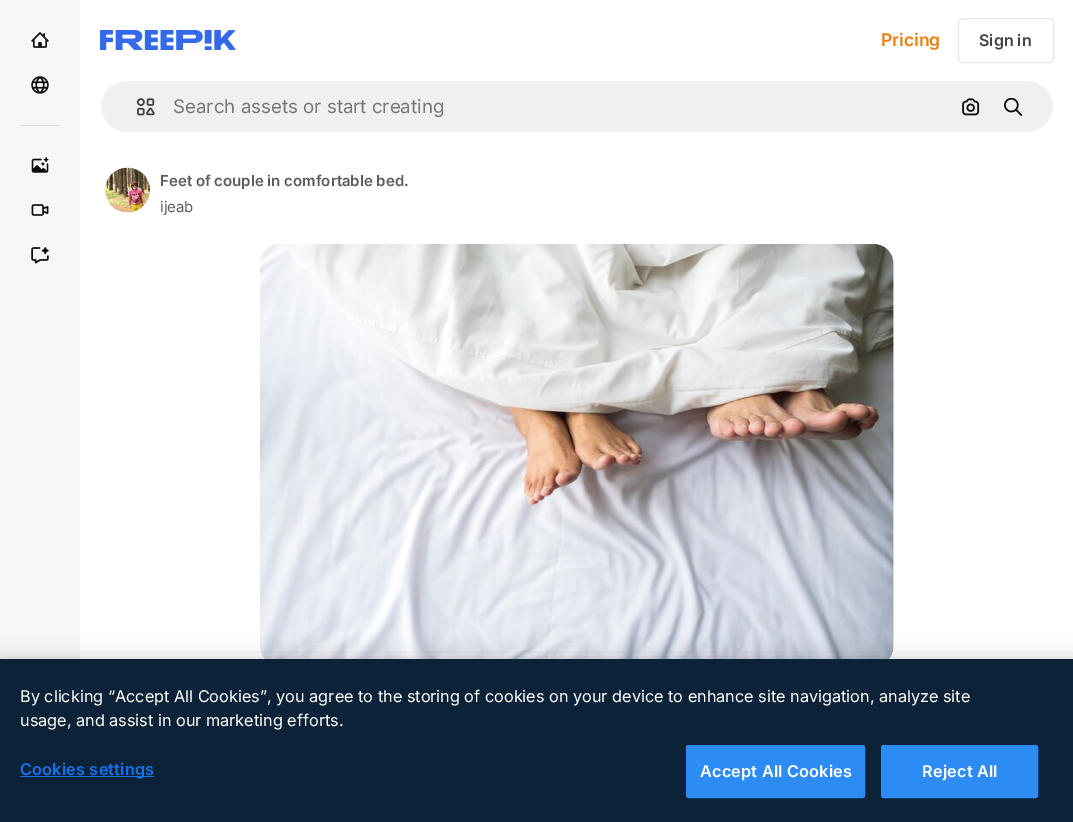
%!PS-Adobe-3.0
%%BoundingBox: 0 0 1073 822
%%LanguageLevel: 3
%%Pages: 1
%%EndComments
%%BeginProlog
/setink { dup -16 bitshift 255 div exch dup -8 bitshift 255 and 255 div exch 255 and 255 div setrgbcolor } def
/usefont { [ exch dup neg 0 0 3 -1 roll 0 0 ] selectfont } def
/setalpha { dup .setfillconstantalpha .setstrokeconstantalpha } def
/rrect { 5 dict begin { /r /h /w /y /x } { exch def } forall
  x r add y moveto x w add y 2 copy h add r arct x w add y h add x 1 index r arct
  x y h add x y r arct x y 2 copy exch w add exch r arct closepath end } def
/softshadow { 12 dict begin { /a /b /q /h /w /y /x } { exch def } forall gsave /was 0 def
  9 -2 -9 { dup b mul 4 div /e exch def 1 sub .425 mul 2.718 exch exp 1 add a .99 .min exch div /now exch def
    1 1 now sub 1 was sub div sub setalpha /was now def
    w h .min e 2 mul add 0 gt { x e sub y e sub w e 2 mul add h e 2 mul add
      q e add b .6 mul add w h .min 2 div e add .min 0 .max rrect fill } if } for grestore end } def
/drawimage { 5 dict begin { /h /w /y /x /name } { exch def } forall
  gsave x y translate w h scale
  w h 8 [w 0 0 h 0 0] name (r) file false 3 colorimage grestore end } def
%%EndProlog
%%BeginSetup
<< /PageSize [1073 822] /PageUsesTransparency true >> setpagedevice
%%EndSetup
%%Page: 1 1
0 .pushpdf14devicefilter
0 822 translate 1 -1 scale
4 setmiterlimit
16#FFFFFF setink
0 0 1073 822 rectfill
16#F7F7F7 setink
0 0 80 659 rectfill
(img1.raw) 31 32 18 16 drawimage
(img2.raw) 31 76 18 18 drawimage
16#E0E0E0 setink
20 125 40 1 rectfill
(img3.raw) 31 157 18 16 drawimage
(img4.raw) 31 204 18 12 drawimage
(img5.raw) 31 247 18 17 drawimage
(img6.raw) 100 30 136 20 drawimage
/Inter-SemiBold 17.5 usefont
16#EA7E11 setink
881 46 moveto (Pricing) show
16#E7E7E7 setink
958.5 18.5 95 44 4.5 rrect stroke
/Inter-SemiBold 16 usefont
16#424242 setink
979 46 moveto (Sign in) show
16#F0F0F0 setink
100.5 80.5 953 52 26 rrect gsave fill grestore
16#FFFFFF setink
stroke
(img7.raw) 136 98 19 18 drawimage
/Inter-Regular 18.75 usefont
16#777777 setink
173 113 moveto (Search assets or start creating) show
(img8.raw) 962 98 18 18 drawimage
(img9.raw) 1004 98 19 18 drawimage
(img10.raw) 105 167 45 46 drawimage
/Inter-SemiBold 15 usefont
16#5C5C5C setink
160 186 moveto (Feet of couple in comfortable bed.) show
/Inter-Regular 15 usefont
160 212 moveto (ijeab) show
(img11.raw) 260 244 634 415 drawimage
16#000000 setink
0 659 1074 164 0 11 0.2 softshadow
16#0B2239 setink
0 659 1073 163 rectfill
/Inter-Regular 16.25 usefont
16#FFFFFF setink
20 702 moveto (By clicking “Accept All Cookies”, you agree to the storing of cookies on your device to enhance site navigation, analyze site) show
20 726 moveto (usage, and assist in our marketing efforts.) show
16#1273EB setink
20 776 134 1 rectfill
/Inter-SemiBold 16.25 usefont
20 775 moveto 0.2 0 (Cookies settings) ashow
16#2C8CF4 setink
686.5 745.5 178 52 2 rrect gsave fill grestore
stroke
16#FFFFFF setink
700 777 moveto 0.2 0 (Accept All Cookies) ashow
16#2C8CF4 setink
881.5 745.5 156 52 2 rrect gsave fill grestore
stroke
16#FFFFFF setink
922 777 moveto 0.2 0 (Reject All) ashow
.poppdf14devicefilter showpage
%%EOF
